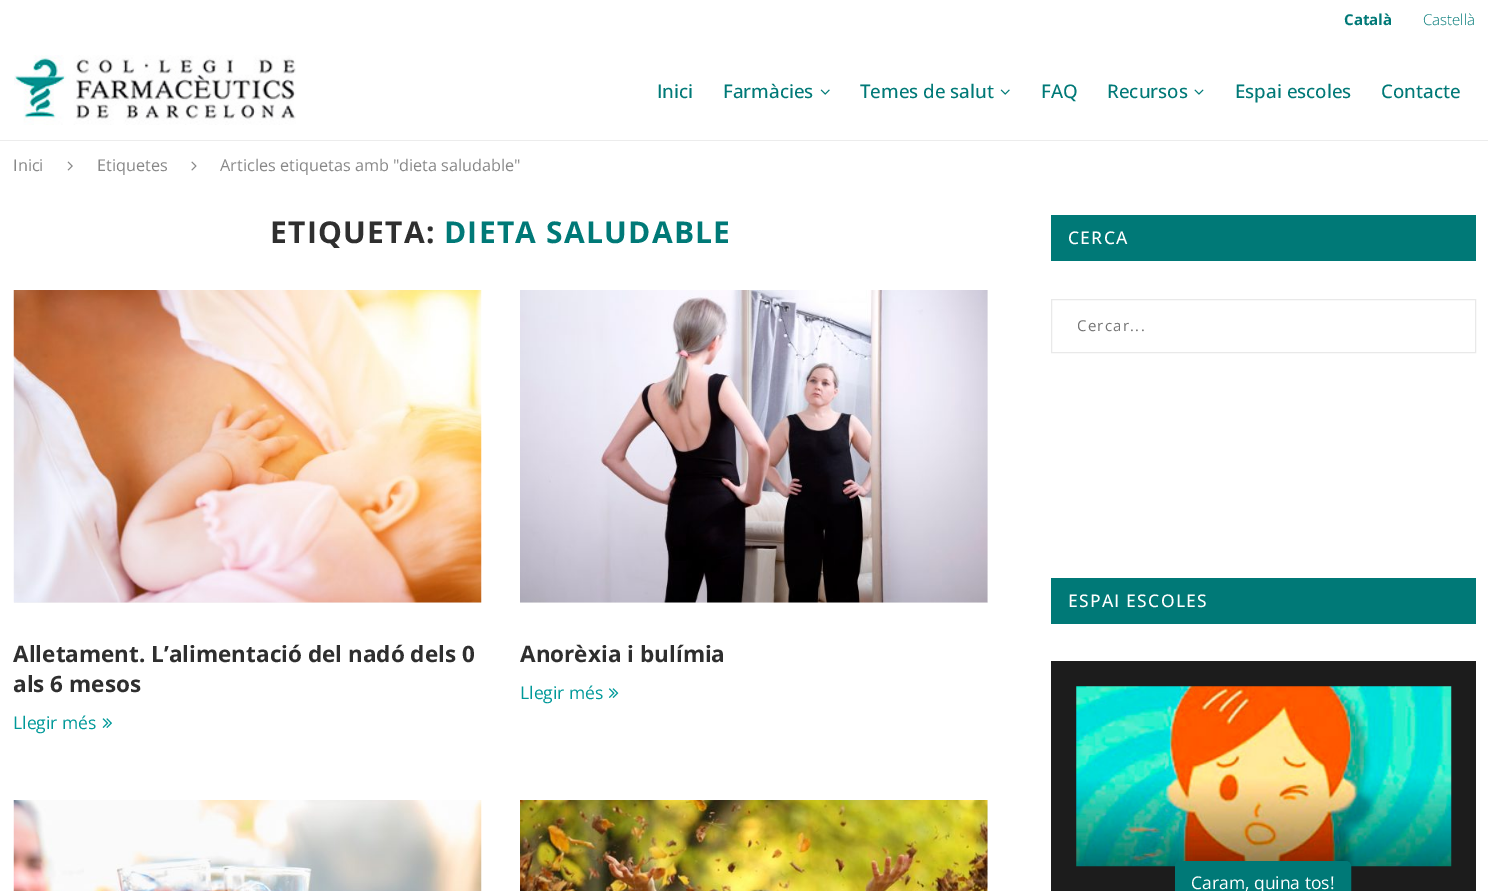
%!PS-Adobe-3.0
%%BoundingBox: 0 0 1488 891
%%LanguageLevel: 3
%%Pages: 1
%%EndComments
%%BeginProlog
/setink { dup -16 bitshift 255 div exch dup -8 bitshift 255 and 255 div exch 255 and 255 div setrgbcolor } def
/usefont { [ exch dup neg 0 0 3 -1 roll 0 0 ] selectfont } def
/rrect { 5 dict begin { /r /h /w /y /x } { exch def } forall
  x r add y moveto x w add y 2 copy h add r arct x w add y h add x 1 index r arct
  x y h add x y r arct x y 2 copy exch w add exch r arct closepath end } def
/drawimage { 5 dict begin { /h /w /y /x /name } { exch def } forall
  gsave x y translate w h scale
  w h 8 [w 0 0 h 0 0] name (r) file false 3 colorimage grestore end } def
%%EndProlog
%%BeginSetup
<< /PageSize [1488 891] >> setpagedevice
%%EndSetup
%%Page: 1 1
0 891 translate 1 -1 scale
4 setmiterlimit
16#FFFFFF setink
0 0 1488 891 rectfill
/OpenSans-Bold 15 usefont
16#007977 setink
1344 25 moveto (Català) show
/OpenSans-Light 15 usefont
1423 25 moveto (Castellà) show
16#ECECEC setink
0 140 1488 1 rectfill
(img1.raw) 14 55 282 70 drawimage
/OpenSans-Medium 18.75 usefont
16#007977 setink
657 98 moveto (Inici) show
723 98 moveto (Farmàcies) show
(img2.raw) 820 89 10 6 drawimage
860 98 moveto (Temes de salut) show
(img2.raw) 1000 89 10 6 drawimage
1041 98 moveto (FAQ) show
1107 98 moveto (Recursos) show
(img3.raw) 1194 89 10 6 drawimage
1235 98 moveto (Espai escoles) show
1381 98 moveto (Contacte) show
/OpenSans-Regular 16.25 usefont
16#888888 setink
13 171 moveto (Inici) show
(img4.raw) 67 161 6 10 drawimage
97 171 moveto (Etiquetes) show
(img5.raw) 191 161 6 10 drawimage
220 171 moveto (Articles etiquetas amb "dieta saludable") show
/OpenSans-Bold 30 usefont
16#2F2F2F setink
270 243 moveto 1.25 0 (ETIQUETA:) ashow
16#007977 setink
444 243 moveto 1.25 0 (DIETA SALUDABLE) ashow
16#F5F5F5 setink
14 602 467 1 rectfill
(img6.raw) 13 290 469 313 drawimage
/OpenSans-Bold 22.5 usefont
16#2F2F2F setink
13 662 moveto (Alletament. L’alimentació del nadó dels 0) show
13 692 moveto (als 6 mesos) show
/OpenSans-Regular 17.5 usefont
16#009999 setink
13 729 moveto (Llegir més) show
(img7.raw) 102 718 10 10 drawimage
16#F5F5F5 setink
520 290 468 313 rectfill
(img8.raw) 520 290 468 313 drawimage
/OpenSans-Bold 22.5 usefont
16#2F2F2F setink
520 662 moveto (Anorèxia i bulímia) show
/OpenSans-Regular 17.5 usefont
16#009999 setink
520 699 moveto (Llegir més) show
(img9.raw) 608 688 11 10 drawimage
(img10.raw) 13 800 469 91 drawimage
16#F5F5F5 setink
987 800 1 91 rectfill
(img11.raw) 520 800 468 91 drawimage
16#007977 setink
1051 215 425 46 rectfill
/OpenSans-Medium 17.5 usefont
16#FFFFFF setink
1068 244 moveto 1.25 0 (CERCA) ashow
16#E9E9E9 setink
1051.5 299.5 424 53 rectstroke
gsave
1078 315 347 21 rectclip
/OpenSans-Regular 15 usefont
16#757575 setink
1077 331 moveto 1.25 0 (Cercar...) ashow
grestore
16#007977 setink
1051 578 425 46 rectfill
16#FFFFFF setink
1068 607 moveto 1.25 0 (ESPAI ESCOLES) ashow
16#1C1C1C setink
1051 661 425 230 rectfill
(img12.raw) 1076 686 376 181 drawimage
16#007977 setink
1175.5 861.5 175 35 4.5 rrect gsave fill grestore
stroke
/OpenSans-Regular 17.5 usefont
16#FFFFFF setink
1191 889 moveto (Caram, quina tos!) show
showpage
%%EOF
